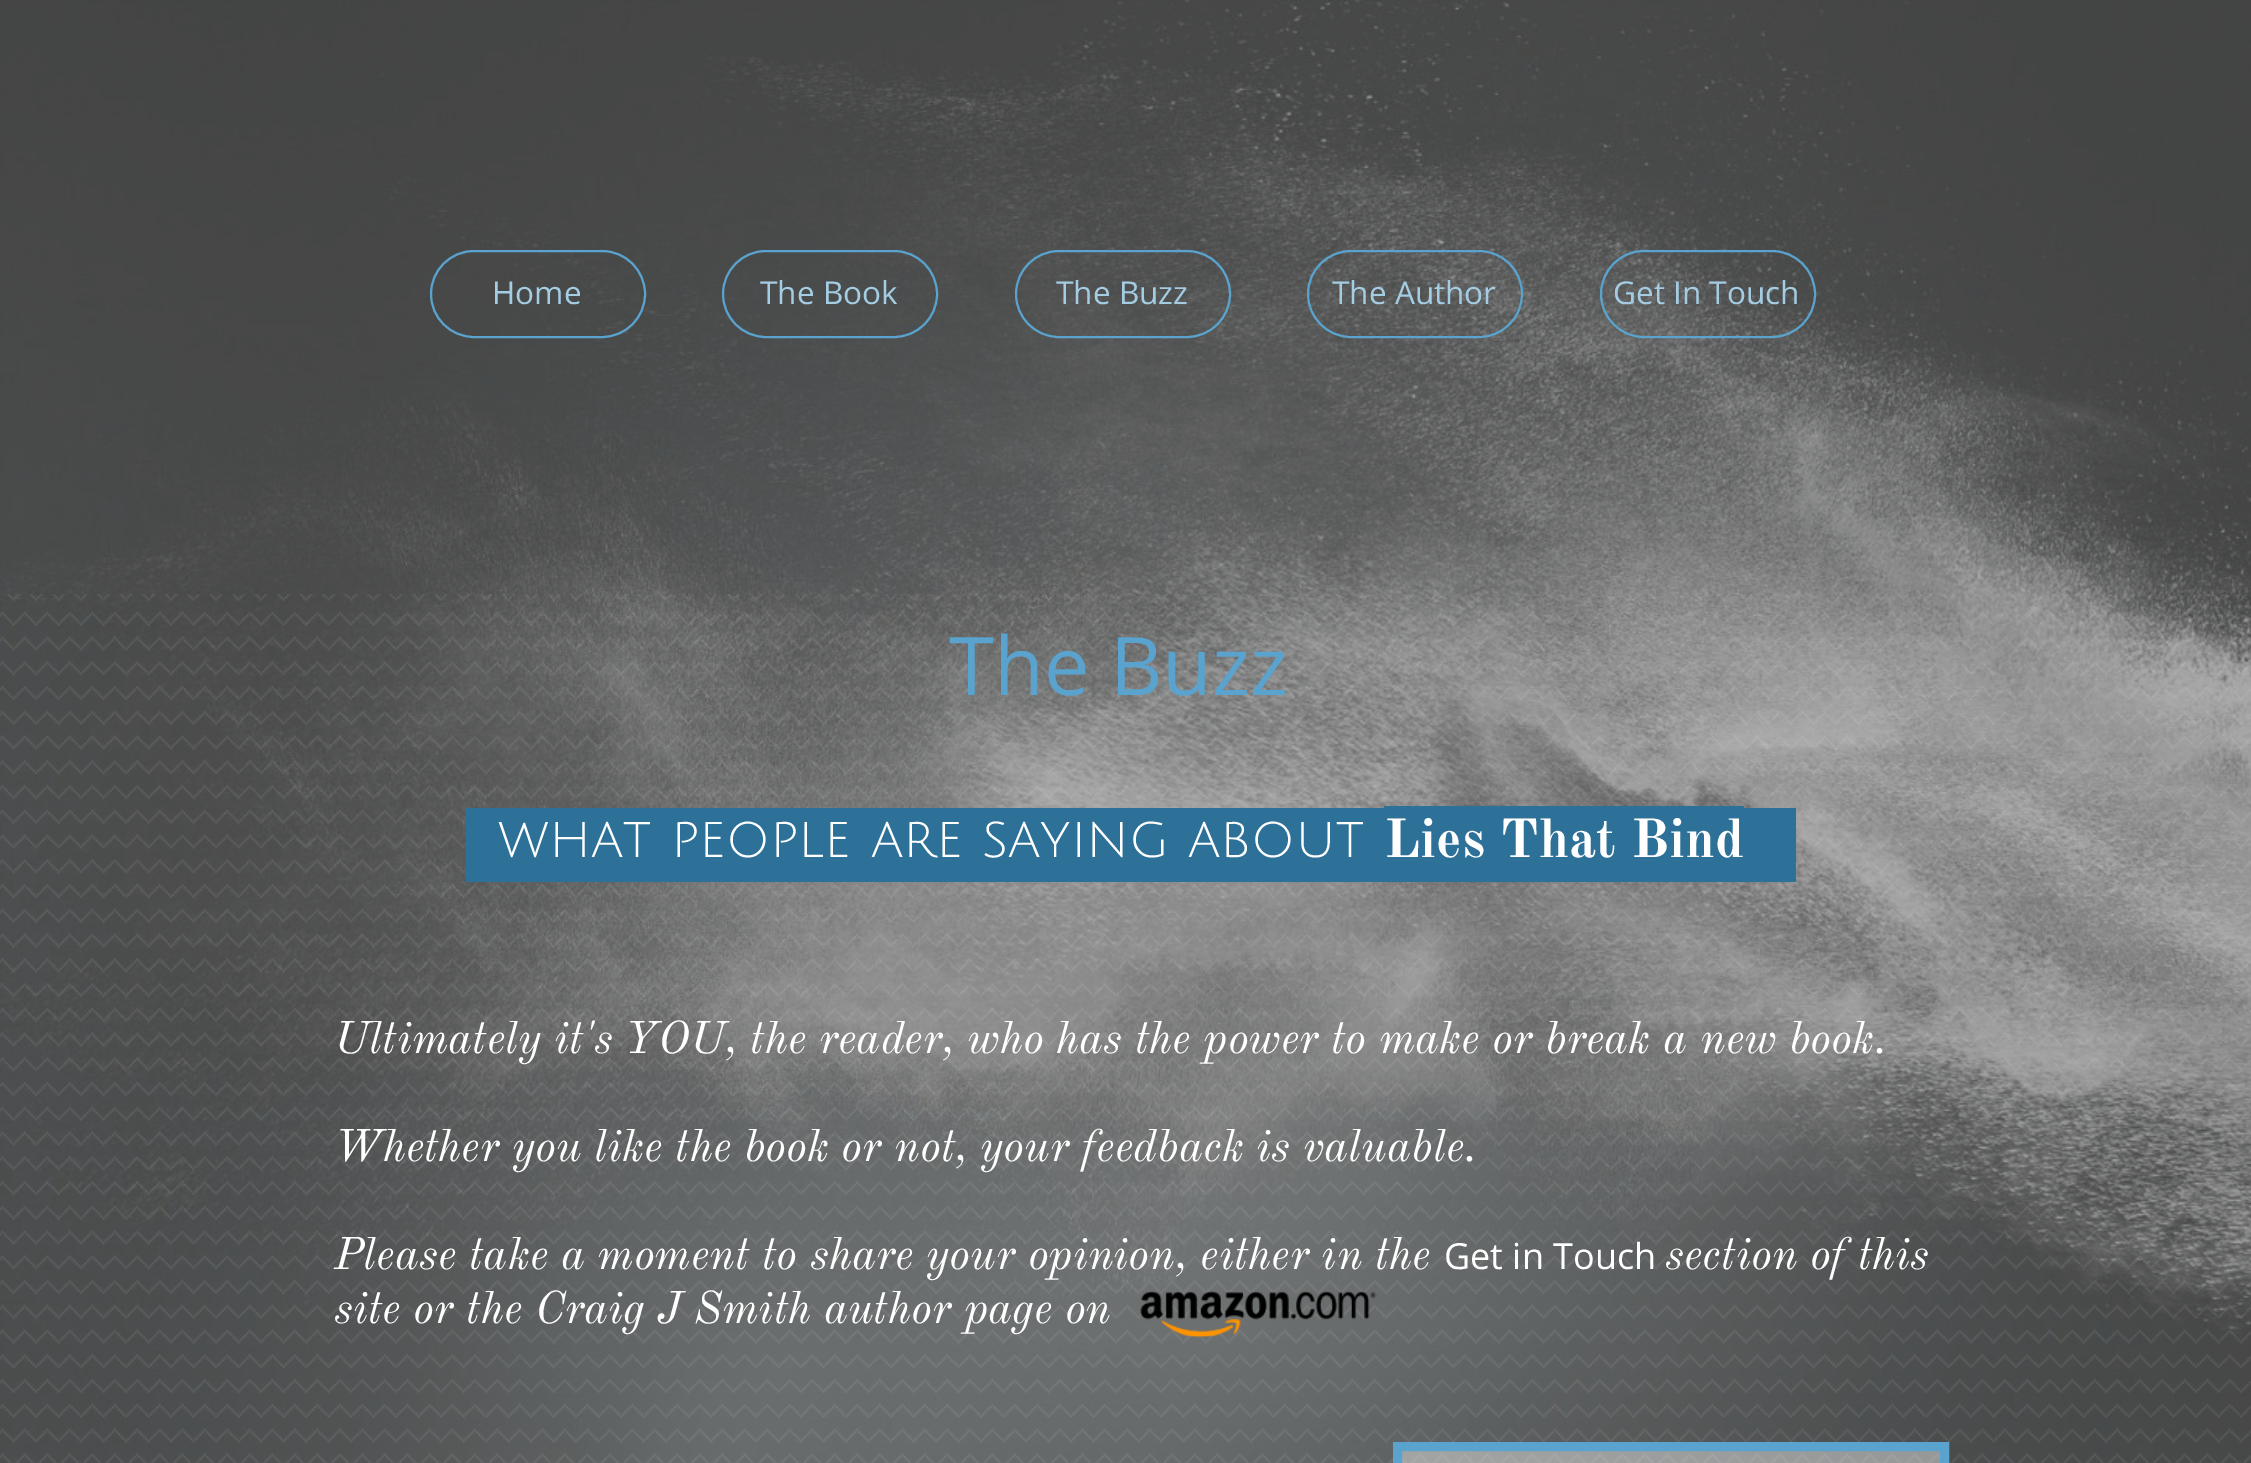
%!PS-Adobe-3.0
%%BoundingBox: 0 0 2251 1463
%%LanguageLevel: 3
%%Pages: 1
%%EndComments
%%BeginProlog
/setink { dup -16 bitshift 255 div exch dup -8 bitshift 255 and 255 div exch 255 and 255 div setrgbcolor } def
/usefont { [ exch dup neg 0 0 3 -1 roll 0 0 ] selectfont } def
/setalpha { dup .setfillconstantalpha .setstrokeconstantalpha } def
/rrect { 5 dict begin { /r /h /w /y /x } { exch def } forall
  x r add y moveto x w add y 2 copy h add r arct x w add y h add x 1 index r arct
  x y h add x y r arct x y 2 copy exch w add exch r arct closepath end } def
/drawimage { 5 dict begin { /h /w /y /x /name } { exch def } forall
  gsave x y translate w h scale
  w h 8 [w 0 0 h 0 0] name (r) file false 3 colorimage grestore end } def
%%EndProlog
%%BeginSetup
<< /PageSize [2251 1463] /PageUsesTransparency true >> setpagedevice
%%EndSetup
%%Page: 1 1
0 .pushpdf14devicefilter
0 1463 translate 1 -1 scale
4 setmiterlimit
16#666666 setink
0 0 2251 1463 rectfill
(img1.raw) 0 0 2251 1463 drawimage
16#59A3CE setink
2 setlinewidth
431 251 214 86 43 rrect stroke
/OpenSans-Regular 31.5 usefont
16#A4CDE4 setink
492 304 moveto (Home) show
16#59A3CE setink
723 251 214 86 43 rrect stroke
16#A4CDE4 setink
760 304 moveto (The Book) show
16#59A3CE setink
1016 251 214 86 43 rrect stroke
16#A4CDE4 setink
1056 304 moveto (The Buzz) show
16#59A3CE setink
1308 251 214 86 43 rrect stroke
16#A4CDE4 setink
1332 304 moveto (The Author) show
16#59A3CE setink
1601 251 214 86 43 rrect stroke
16#A4CDE4 setink
1613 304 moveto (Get In Touch) show
(img2.raw) 0 594 2251 869 drawimage
/OpenSans-Regular 81 usefont
16#59A3CE setink
949 695 moveto (The Buzz) show
16#2D7199 setink
466 808 1330 74 rectfill
/JuliusSansOne-Regular 54 usefont
16#FFFFFF setink
498 857 moveto (what people are saying about) show
/OldStandardTT-Bold 54 usefont
1384 857 moveto (Lies That Bind) show
16#2D7199 setink
1384 806 360 2 rectfill
/OldStandardTT-Italic 45 usefont
16#FFFFFF setink
[
    [(Ultimately it's YOU, the reader, who has the power to make or break a new book.) 334 1053]
    [(Whether you like the book or not, your feedback is valuable.) 334 1161]
    [(Please take a moment to share your opinion, either in the) 334 1269]
] { aload pop moveto show } forall
/OpenSans-Regular 36 usefont
1444 1269 moveto (Get in Touch) show
/OldStandardTT-Italic 45 usefont
1665 1269 moveto (section of this) show
334 1323 moveto (site or the Craig J Smith author page on) show
(img3.raw) 1140 1291 237 46 drawimage
0.42 setalpha
1397.5 1446.5 moveto 1944.5 1446.5 lineto 1944.5 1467.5 lineto 1397.5 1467.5 lineto closepath fill
1 setalpha
16#59A3CE setink
9 setlinewidth
1397.5 1446.5 moveto 1944.5 1446.5 lineto 1944.5 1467.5 lineto 1397.5 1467.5 lineto closepath stroke
.poppdf14devicefilter showpage
%%EOF
